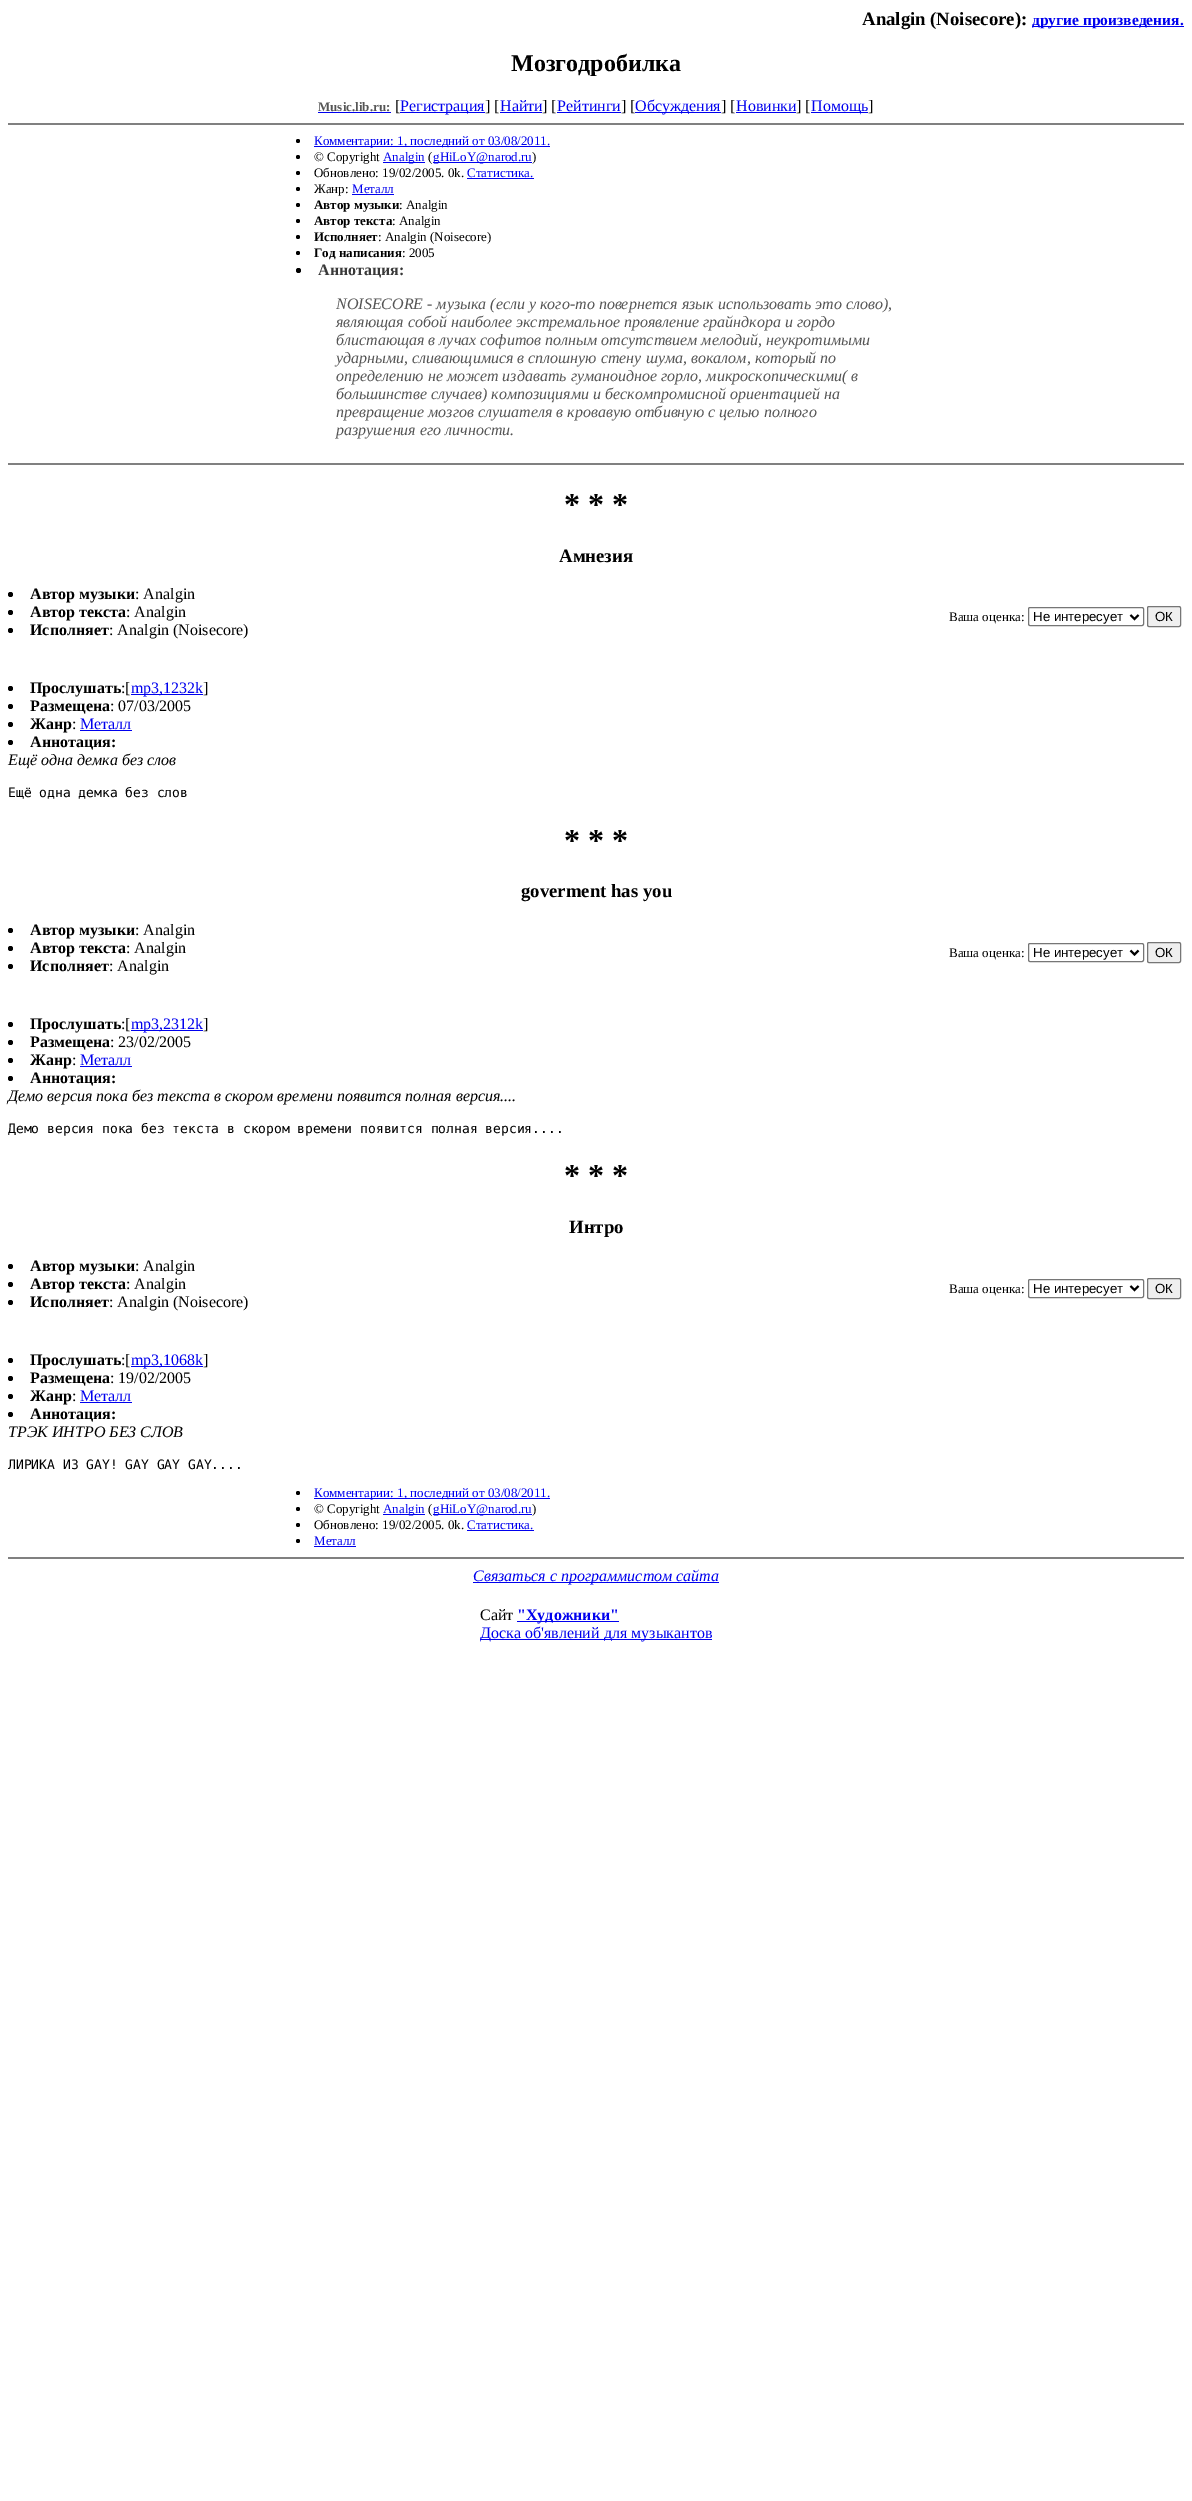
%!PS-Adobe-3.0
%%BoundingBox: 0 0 1192 2501
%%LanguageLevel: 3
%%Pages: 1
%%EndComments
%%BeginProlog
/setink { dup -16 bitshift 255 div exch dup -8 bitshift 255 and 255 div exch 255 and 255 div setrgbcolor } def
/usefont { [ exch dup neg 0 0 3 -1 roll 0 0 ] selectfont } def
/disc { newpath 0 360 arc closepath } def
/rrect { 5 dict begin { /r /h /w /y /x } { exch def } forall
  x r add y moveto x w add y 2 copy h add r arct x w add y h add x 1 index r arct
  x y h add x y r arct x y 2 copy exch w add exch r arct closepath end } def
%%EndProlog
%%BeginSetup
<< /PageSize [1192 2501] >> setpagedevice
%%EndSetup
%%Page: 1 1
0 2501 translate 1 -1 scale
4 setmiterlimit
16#FFFFFF setink
0 0 1192 2501 rectfill
/LiberationSerif-Bold 18.75 usefont
16#000000 setink
862 25 moveto (Analgin \(Noisecore\):) show
16#0000EE setink
1032 26 152 1 rectfill
/LiberationSerif-Bold 15.5 usefont
1032 25 moveto (другие произведения.) show
/LiberationSerif-Bold 24 usefont
16#000000 setink
511 71 moveto (Мозгодробилка) show
/LiberationSerif-Bold 13 usefont
16#555555 setink
318 111 moveto (Music.lib.ru:) show
16#0000EE setink
318 112 73 1 rectfill
/LiberationSerif-Regular 16 usefont
16#000000 setink
395 111 moveto ([) show
16#0000EE setink
400 112 85 1 rectfill
400 111 moveto (Регистрация) show
16#000000 setink
485 111 moveto (] [) show
16#0000EE setink
500 111 moveto (Найти) show
500 112 42 1 rectfill
16#000000 setink
542 111 moveto (] [) show
16#0000EE setink
557 111 moveto (Рейтинги) show
557 112 64 1 rectfill
16#000000 setink
621 111 moveto (] [) show
16#0000EE setink
635 112 86 1 rectfill
635 111 moveto (Обсуждения) show
16#000000 setink
721 111 moveto (] [) show
16#0000EE setink
736 111 moveto (Новинки) show
736 112 60 1 rectfill
16#000000 setink
796 111 moveto (] [) show
16#0000EE setink
811 112 57 1 rectfill
811 111 moveto (Помощь) show
16#000000 setink
868 111 moveto (]) show
16#808080 setink
8 123 1176 2 rectfill
16#000000 setink
298 141 2 disc fill
16#0000EE setink
314 146 236 1 rectfill
/LiberationSerif-Regular 13 usefont
314 145 moveto (Комментарии: 1, последний от 03/08/2011.) show
16#000000 setink
298 157 2 disc fill
314 161 moveto (© Copyright) show
16#0000EE setink
383 162 42 1 rectfill
383 161 moveto (Analgin) show
16#000000 setink
428 161 moveto (\() show
16#0000EE setink
433 162 99 1 rectfill
433 161 moveto (gHiLoY@narod.ru) show
16#000000 setink
532 161 moveto (\)) show
298 173 2 disc fill
314 177 moveto (Обновлено: 19/02/2005. 0k.) show
16#0000EE setink
467 177 moveto (Статистика.) show
467 178 67 1 rectfill
16#000000 setink
298 189 2 disc fill
314 193 moveto (Жанр:) show
16#0000EE setink
352 193 moveto (Металл) show
352 194 42 1 rectfill
16#000000 setink
298 205 2 disc fill
/LiberationSerif-Bold 13 usefont
314 209 moveto (Автор музыки) show
/LiberationSerif-Regular 13 usefont
399 209 moveto (: Analgin) show
298 221 2 disc fill
/LiberationSerif-Bold 13 usefont
314 225 moveto (Автор текста) show
/LiberationSerif-Regular 13 usefont
392 225 moveto (: Analgin) show
298 237 2 disc fill
/LiberationSerif-Bold 13 usefont
314 241 moveto (Исполняет) show
/LiberationSerif-Regular 13 usefont
378 241 moveto (: Analgin \(Noisecore\)) show
298 253 2 disc fill
/LiberationSerif-Bold 13 usefont
314 257 moveto (Год написания) show
/LiberationSerif-Regular 13 usefont
402 257 moveto (: 2005) show
298.5 270.5 2.5 disc fill
/LiberationSerif-Bold 16 usefont
16#393939 setink
318 275 moveto (Аннотация:) show
/LiberationSerif-Italic 16 usefont
16#555555 setink
[
    [(NOISECORE - музыка \(если у кого-то повернется язык использовать это слово\),) 336 309]
    [(являющая собой наиболее экстремальное проявление грайндкора и гордо) 336 327]
    [(блистающая в лучах софитов полным отсутствием мелодий, неукротимыми) 336 345]
    [(ударными, сливающимися в сплошную стену шума, вокалом, который по) 336 363]
    [(определению не может издавать гуманоидное горло, микроскопическими\( в) 336 381]
    [(большинстве случаев\) композициями и бескомпромисной ориентацией на) 336 399]
    [(превращение мозгов слушателя в кровавую отбивную c целью полного) 336 417]
    [(разрушения его личности.) 336 435]
] { aload pop moveto show } forall
16#808080 setink
8 463 1176 2 rectfill
/LiberationSerif-Bold 32 usefont
16#000000 setink
564 515 moveto (* * *) show
/LiberationSerif-Bold 18.75 usefont
559 562 moveto (Амнезия) show
10.5 594.5 2.5 disc fill
/LiberationSerif-Bold 16 usefont
30 599 moveto (Автор музыки) show
/LiberationSerif-Regular 16 usefont
135 599 moveto (: Analgin) show
10.5 612.5 2.5 disc fill
/LiberationSerif-Bold 16 usefont
30 617 moveto (Автор текста) show
/LiberationSerif-Regular 16 usefont
126 617 moveto (: Analgin) show
/LiberationSerif-Regular 13 usefont
949 621 moveto (Ваша оценка:) show
16#767676 setink
1028.5 607.5 115 18 1.5 rrect stroke
16#000000 setink
2 setlinewidth
1130.5 615 moveto 1134.5 619 lineto 1138.5 615 lineto stroke
/LiberationSans-Regular 13.25 usefont
1033 621 moveto (Не интересует) show
16#EFEFEF setink
1147.5 606.5 33 20 1.5 rrect gsave fill grestore
16#767676 setink
1 setlinewidth
stroke
16#000000 setink
1155 621 moveto (ОК) show
10.5 630.5 2.5 disc fill
/LiberationSerif-Bold 16 usefont
30 635 moveto (Исполняет) show
/LiberationSerif-Regular 16 usefont
109 635 moveto (: Analgin \(Noisecore\)) show
10.5 688.5 2.5 disc fill
/LiberationSerif-Bold 16 usefont
30 693 moveto (Прослушать) show
/LiberationSerif-Regular 16 usefont
121 693 moveto (:[) show
16#0000EE setink
131 694 72 1 rectfill
131 693 moveto (mp3,1232k) show
16#000000 setink
203 693 moveto (]) show
10.5 706.5 2.5 disc fill
/LiberationSerif-Bold 16 usefont
30 711 moveto (Размещена) show
/LiberationSerif-Regular 16 usefont
110 711 moveto (: 07/03/2005) show
10.5 724.5 2.5 disc fill
/LiberationSerif-Bold 16 usefont
30 729 moveto (Жанр) show
/LiberationSerif-Regular 16 usefont
72 729 moveto (:) show
16#0000EE setink
80 729 moveto (Металл) show
80 730 52 1 rectfill
16#000000 setink
10.5 742.5 2.5 disc fill
/LiberationSerif-Bold 16 usefont
30 747 moveto (Аннотация:) show
/LiberationSerif-Italic 16 usefont
8 765 moveto (Ещё одна демка без слов) show
/DejaVuSansMono-Regular 13 usefont
8 797 moveto (Ещё одна демка без слов) show
/LiberationSerif-Bold 32 usefont
564 851 moveto (* * *) show
/LiberationSerif-Bold 18.75 usefont
521 897 moveto (goverment has you) show
10.5 930.5 2.5 disc fill
/LiberationSerif-Bold 16 usefont
30 935 moveto (Автор музыки) show
/LiberationSerif-Regular 16 usefont
135 935 moveto (: Analgin) show
10.5 948.5 2.5 disc fill
/LiberationSerif-Bold 16 usefont
30 953 moveto (Автор текста) show
/LiberationSerif-Regular 16 usefont
126 953 moveto (: Analgin) show
/LiberationSerif-Regular 13 usefont
949 957 moveto (Ваша оценка:) show
16#767676 setink
1028.5 943.5 115 18 1.5 rrect stroke
16#000000 setink
2 setlinewidth
1130.5 950.5 moveto 1134.5 954.5 lineto 1138.5 950.5 lineto stroke
/LiberationSans-Regular 13.25 usefont
1033 957 moveto (Не интересует) show
16#EFEFEF setink
1147.5 942.5 33 20 1.5 rrect gsave fill grestore
16#767676 setink
1 setlinewidth
stroke
16#000000 setink
1155 957 moveto (ОК) show
10.5 966.5 2.5 disc fill
/LiberationSerif-Bold 16 usefont
30 971 moveto (Исполняет) show
/LiberationSerif-Regular 16 usefont
109 971 moveto (: Analgin) show
10.5 1024.5 2.5 disc fill
/LiberationSerif-Bold 16 usefont
30 1029 moveto (Прослушать) show
/LiberationSerif-Regular 16 usefont
121 1029 moveto (:[) show
16#0000EE setink
131 1030 72 1 rectfill
131 1029 moveto (mp3,2312k) show
16#000000 setink
203 1029 moveto (]) show
10.5 1042.5 2.5 disc fill
/LiberationSerif-Bold 16 usefont
30 1047 moveto (Размещена) show
/LiberationSerif-Regular 16 usefont
110 1047 moveto (: 23/02/2005) show
10.5 1060.5 2.5 disc fill
/LiberationSerif-Bold 16 usefont
30 1065 moveto (Жанр) show
/LiberationSerif-Regular 16 usefont
72 1065 moveto (:) show
16#0000EE setink
80 1065 moveto (Металл) show
80 1066 52 1 rectfill
16#000000 setink
10.5 1078.5 2.5 disc fill
/LiberationSerif-Bold 16 usefont
30 1083 moveto (Аннотация:) show
/LiberationSerif-Italic 16 usefont
8 1101 moveto (Демо версия пока без текста в скором времени появится полная версия....) show
/DejaVuSansMono-Regular 13 usefont
8 1133 moveto (Демо версия пока без текста в скором времени появится полная версия....) show
/LiberationSerif-Bold 32 usefont
564 1186 moveto (* * *) show
/LiberationSerif-Bold 18.75 usefont
569 1233 moveto (Интро) show
10.5 1266.5 2.5 disc fill
/LiberationSerif-Bold 16 usefont
30 1271 moveto (Автор музыки) show
/LiberationSerif-Regular 16 usefont
135 1271 moveto (: Analgin) show
10.5 1284.5 2.5 disc fill
/LiberationSerif-Bold 16 usefont
30 1289 moveto (Автор текста) show
/LiberationSerif-Regular 16 usefont
126 1289 moveto (: Analgin) show
/LiberationSerif-Regular 13 usefont
949 1293 moveto (Ваша оценка:) show
16#767676 setink
1028.5 1279.5 115 18 1.5 rrect stroke
16#000000 setink
2 setlinewidth
1130.5 1286 moveto 1134.5 1290 lineto 1138.5 1286 lineto stroke
/LiberationSans-Regular 13.25 usefont
1033 1293 moveto (Не интересует) show
16#EFEFEF setink
1147.5 1278.5 33 20 1.5 rrect gsave fill grestore
16#767676 setink
1 setlinewidth
stroke
16#000000 setink
1155 1293 moveto (ОК) show
10.5 1302.5 2.5 disc fill
/LiberationSerif-Bold 16 usefont
30 1307 moveto (Исполняет) show
/LiberationSerif-Regular 16 usefont
109 1307 moveto (: Analgin \(Noisecore\)) show
10.5 1360.5 2.5 disc fill
/LiberationSerif-Bold 16 usefont
30 1365 moveto (Прослушать) show
/LiberationSerif-Regular 16 usefont
121 1365 moveto (:[) show
16#0000EE setink
131 1366 72 1 rectfill
131 1365 moveto (mp3,1068k) show
16#000000 setink
203 1365 moveto (]) show
10.5 1378.5 2.5 disc fill
/LiberationSerif-Bold 16 usefont
30 1383 moveto (Размещена) show
/LiberationSerif-Regular 16 usefont
110 1383 moveto (: 19/02/2005) show
10.5 1396.5 2.5 disc fill
/LiberationSerif-Bold 16 usefont
30 1401 moveto (Жанр) show
/LiberationSerif-Regular 16 usefont
72 1401 moveto (:) show
16#0000EE setink
80 1401 moveto (Металл) show
80 1402 52 1 rectfill
16#000000 setink
10.5 1414.5 2.5 disc fill
/LiberationSerif-Bold 16 usefont
30 1419 moveto (Аннотация:) show
/LiberationSerif-Italic 16 usefont
8 1437 moveto (ТРЭК ИНТРО БЕЗ СЛОВ) show
/DejaVuSansMono-Regular 13 usefont
8 1469 moveto (ЛИРИКА ИЗ GAY! GAY GAY GAY....) show
298 1493 2 disc fill
16#0000EE setink
314 1498 236 1 rectfill
/LiberationSerif-Regular 13 usefont
314 1497 moveto (Комментарии: 1, последний от 03/08/2011.) show
16#000000 setink
298 1509 2 disc fill
314 1513 moveto (© Copyright) show
16#0000EE setink
383 1514 42 1 rectfill
383 1513 moveto (Analgin) show
16#000000 setink
428 1513 moveto (\() show
16#0000EE setink
433 1514 99 1 rectfill
433 1513 moveto (gHiLoY@narod.ru) show
16#000000 setink
532 1513 moveto (\)) show
298 1525 2 disc fill
314 1529 moveto (Обновлено: 19/02/2005. 0k.) show
16#0000EE setink
467 1529 moveto (Статистика.) show
467 1530 67 1 rectfill
16#000000 setink
298 1541 2 disc fill
16#0000EE setink
314 1545 moveto (Металл) show
[
    [314 1546 42 1 16#0000EE]
    [8 1557 1176 2 16#808080]
    [473 1582 246 1 16#0000EE]
] { aload pop setink rectfill } forall
/LiberationSerif-Italic 16 usefont
473 1581 moveto (Связаться с программистом сайта) show
/LiberationSerif-Regular 16 usefont
16#000000 setink
480 1620 moveto (Сайт) show
16#0000EE setink
517 1621 102 1 rectfill
/LiberationSerif-Bold 16 usefont
517 1620 moveto ("Художники") show
480 1639 232 1 rectfill
/LiberationSerif-Regular 16 usefont
480 1638 moveto (Доска об'явлений для музыкантов) show
showpage
%%EOF
